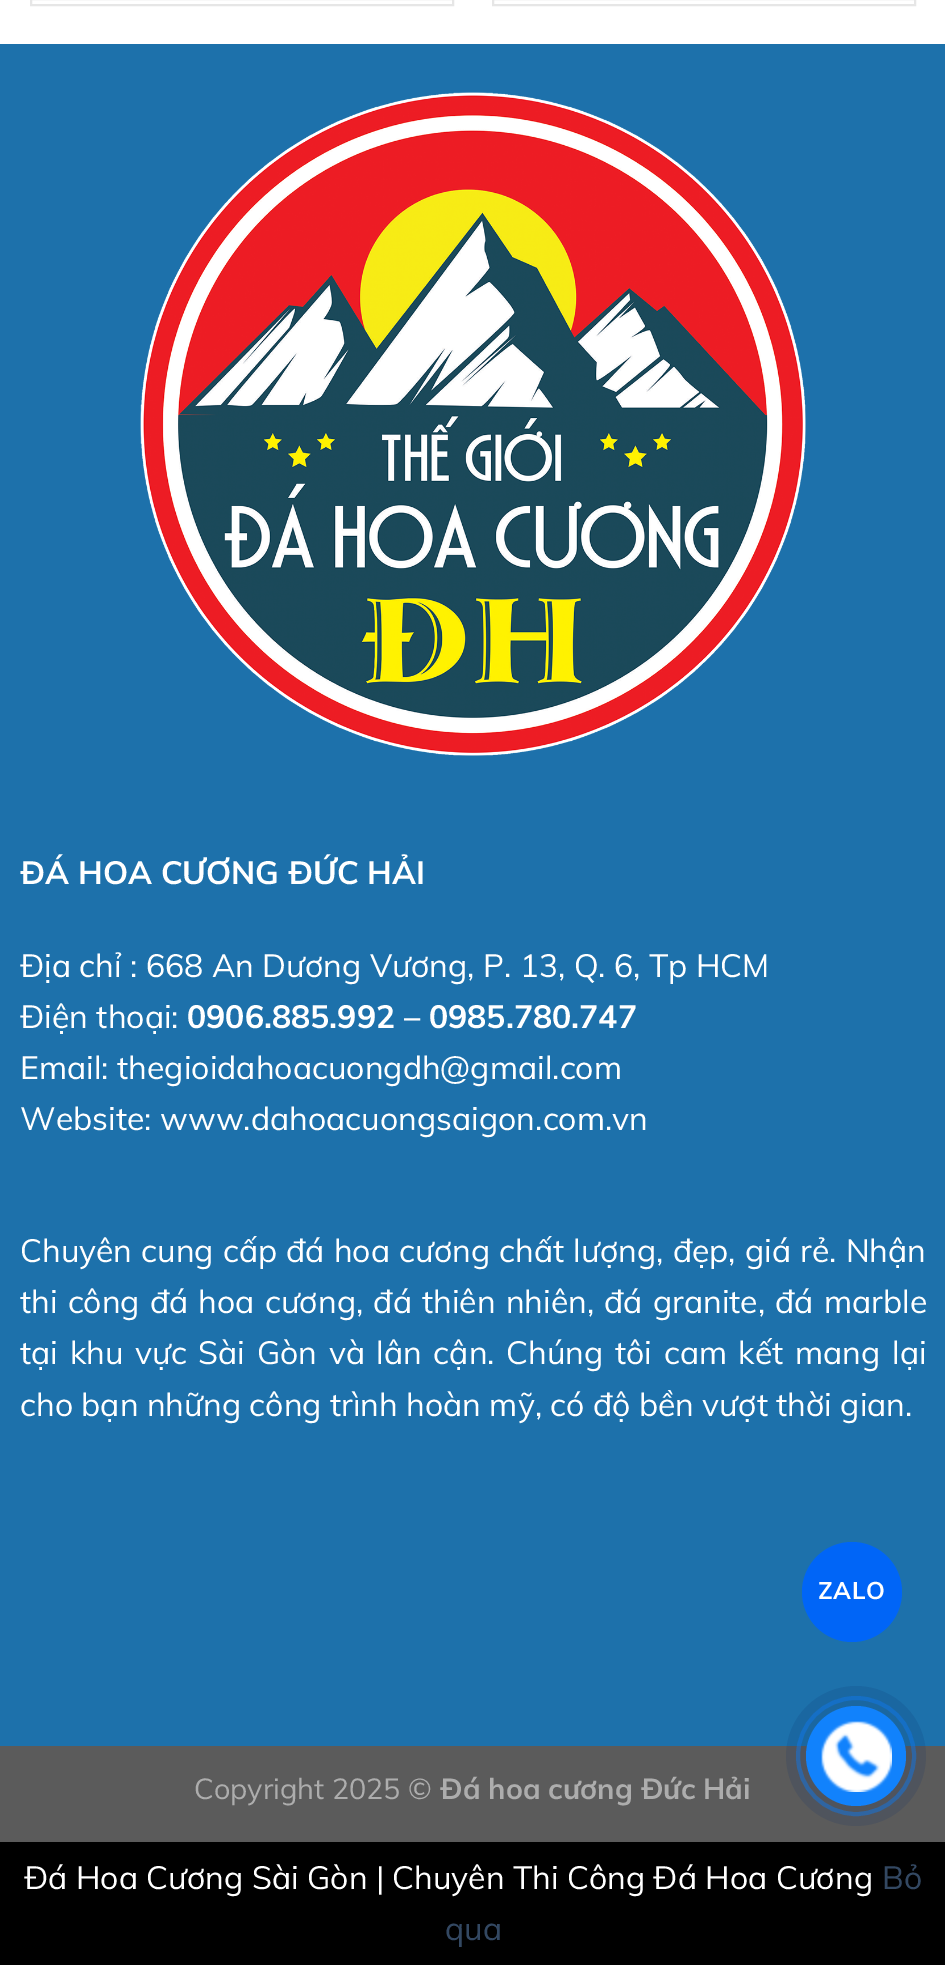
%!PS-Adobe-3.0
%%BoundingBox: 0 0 945 1965
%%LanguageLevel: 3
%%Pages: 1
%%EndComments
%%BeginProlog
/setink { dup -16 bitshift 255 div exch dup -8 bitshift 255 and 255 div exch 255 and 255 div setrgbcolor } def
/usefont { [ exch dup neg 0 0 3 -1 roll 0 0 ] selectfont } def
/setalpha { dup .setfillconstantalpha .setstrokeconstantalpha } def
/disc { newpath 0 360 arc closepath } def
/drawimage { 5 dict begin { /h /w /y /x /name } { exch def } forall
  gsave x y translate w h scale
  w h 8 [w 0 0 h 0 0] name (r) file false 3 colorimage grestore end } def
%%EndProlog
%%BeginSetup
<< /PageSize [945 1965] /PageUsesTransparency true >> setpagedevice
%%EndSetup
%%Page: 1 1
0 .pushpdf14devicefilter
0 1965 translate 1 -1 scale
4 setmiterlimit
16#000000 setink
0 0 945 1965 rectfill
16#FFFFFF setink
0 0 945 44 rectfill
16#E6E6E6 setink
2 setlinewidth
31 -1 422 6 rectstroke
493 -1 422 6 rectstroke
16#1D71AB setink
0 44 945 1702 rectfill
(img1.raw) 140 92 666 664 drawimage
/Muli-Bold 32 usefont
16#FFFFFF setink
20 884 moveto (ĐÁ HOA CƯƠNG ĐỨC HẢI) show
/Muli-Regular 32 usefont
20 977 moveto (Địa chỉ : 668 An Dương Vương, P. 13, Q. 6, Tp HCM) show
20 1028 moveto (Điện thoại:) show
/Muli-Bold 32 usefont
187 1028 moveto (0906.885.992 – 0985.780.747) show
/Muli-Regular 32 usefont
20 1079 moveto (Email: thegioidahoacuongdh@gmail.com) show
20 1130 moveto (Website: www.dahoacuongsaigon.com.vn) show
20 1262 moveto 0.75 0 32 (Chuyên cung cấp đá hoa cương chất lượng, đẹp, giá rẻ. Nhận) widthshow
20 1313 moveto 1.75 0 32 (thi công đá hoa cương, đá thiên nhiên, đá granite, đá marble) widthshow
20 1364 moveto 3.25 0 32 (tại khu vực Sài Gòn và lân cận. Chúng tôi cam kết mang lại) widthshow
20 1416 moveto (cho bạn những công trình hoàn mỹ, có độ bền vượt thời gian.) show
16#5B5B5B setink
0 1746 945 96 rectfill
/Muli-Regular 28.75 usefont
16#ADADAD setink
194 1799 moveto (Copyright 2025 ©) show
/Muli-Bold 28.75 usefont
440 1799 moveto (Đá hoa cương Đức Hải) show
16#0065F7 setink
852 1592 50 disc fill
/Muli-Bold 24 usefont
16#FFFFFF setink
818 1599 moveto 0.5 0 (ZALO) ashow
0.5 setalpha
16#1182FC setink
4 setlinewidth
856 1756 58 disc stroke
0.14 setalpha
16#072967 setink
856 1756 70 disc fill
1 setalpha
16#1182FC setink
856 1756 50 disc fill
(img2.raw) 821 1721 71 71 drawimage
/Muli-Regular 32 usefont
16#FFFFFF setink
24 1889 moveto (Đá Hoa Cương Sài Gòn | Chuyên Thi Công Đá Hoa Cương) show
16#334862 setink
882 1889 moveto (Bỏ) show
445 1940 moveto (qua) show
.poppdf14devicefilter showpage
%%EOF
